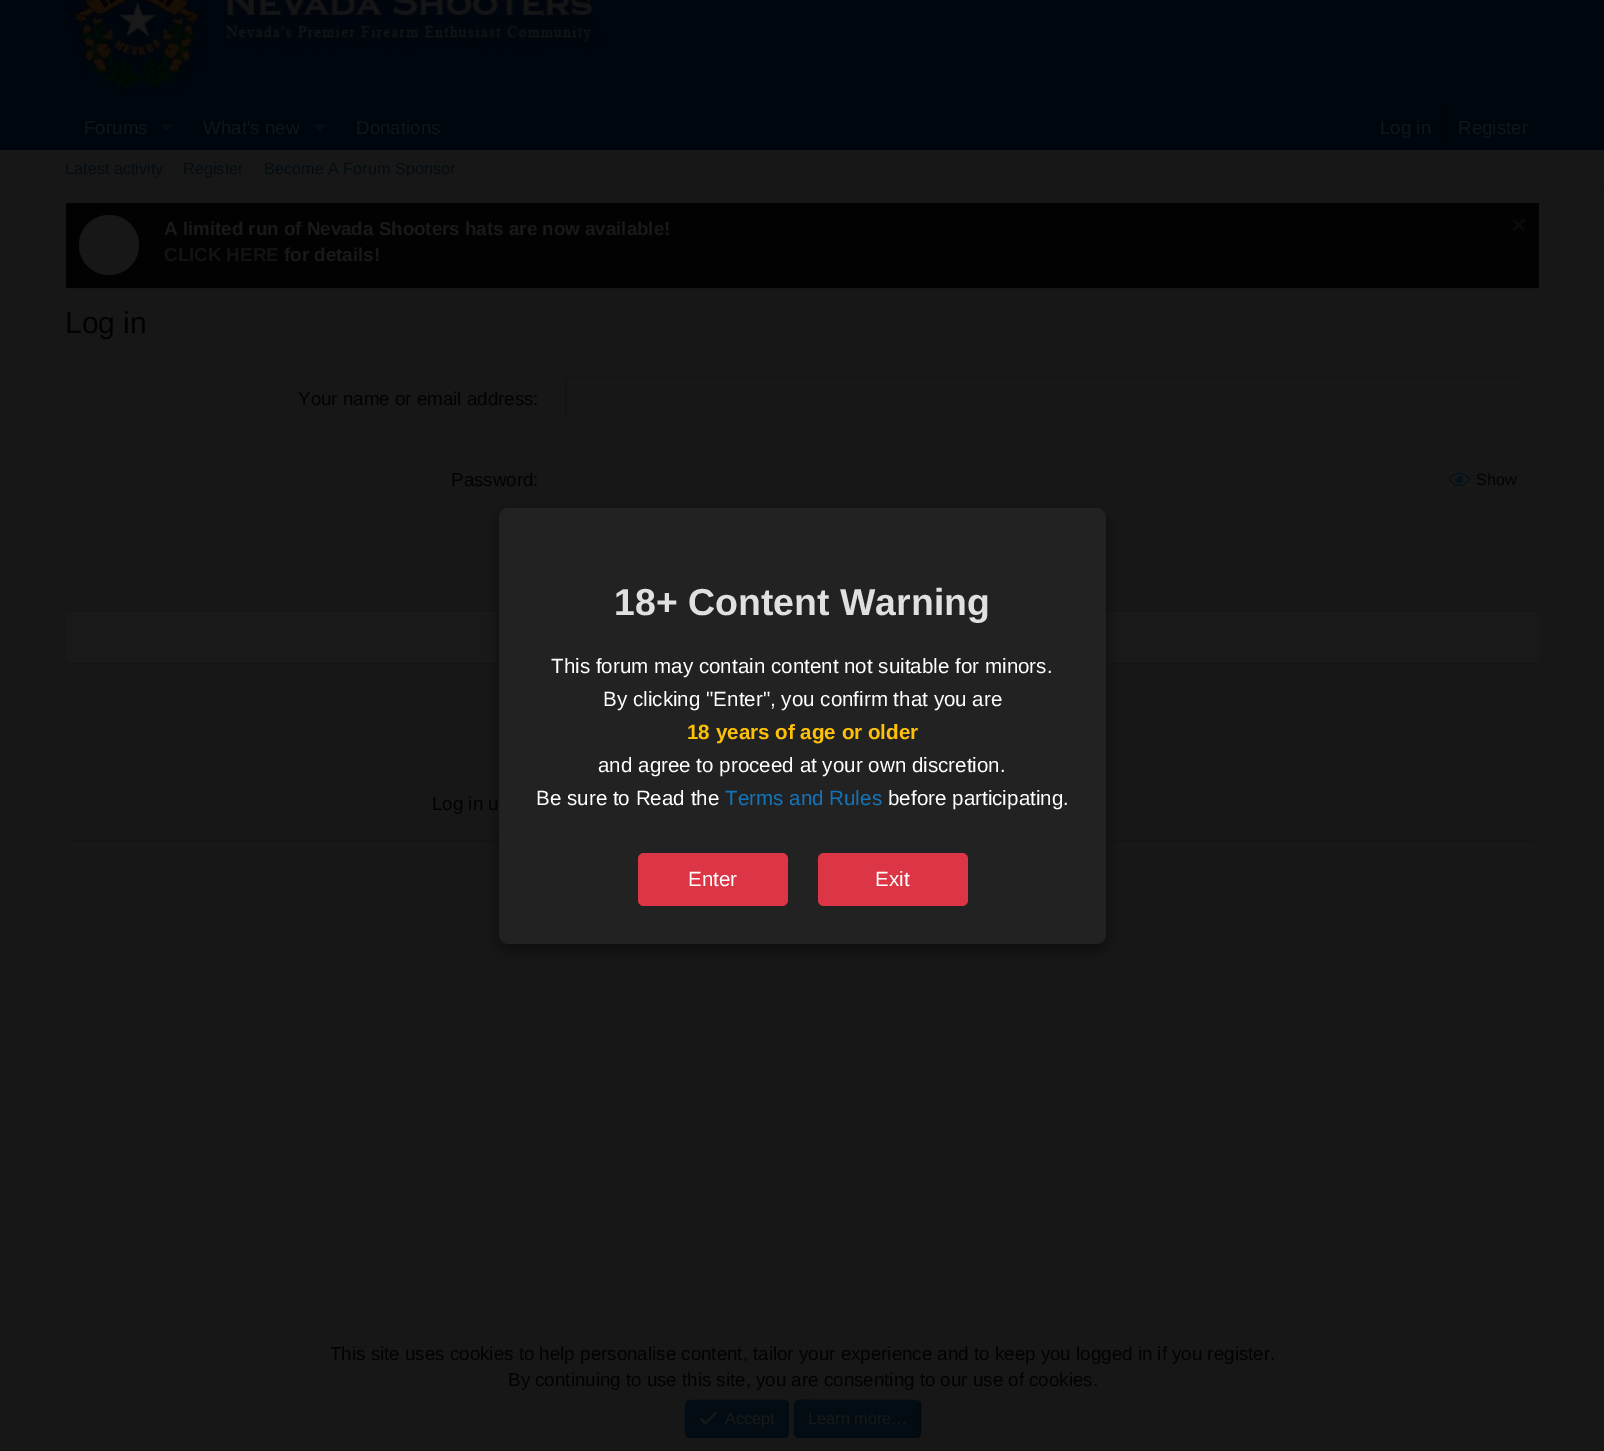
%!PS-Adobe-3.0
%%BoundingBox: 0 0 1604 1451
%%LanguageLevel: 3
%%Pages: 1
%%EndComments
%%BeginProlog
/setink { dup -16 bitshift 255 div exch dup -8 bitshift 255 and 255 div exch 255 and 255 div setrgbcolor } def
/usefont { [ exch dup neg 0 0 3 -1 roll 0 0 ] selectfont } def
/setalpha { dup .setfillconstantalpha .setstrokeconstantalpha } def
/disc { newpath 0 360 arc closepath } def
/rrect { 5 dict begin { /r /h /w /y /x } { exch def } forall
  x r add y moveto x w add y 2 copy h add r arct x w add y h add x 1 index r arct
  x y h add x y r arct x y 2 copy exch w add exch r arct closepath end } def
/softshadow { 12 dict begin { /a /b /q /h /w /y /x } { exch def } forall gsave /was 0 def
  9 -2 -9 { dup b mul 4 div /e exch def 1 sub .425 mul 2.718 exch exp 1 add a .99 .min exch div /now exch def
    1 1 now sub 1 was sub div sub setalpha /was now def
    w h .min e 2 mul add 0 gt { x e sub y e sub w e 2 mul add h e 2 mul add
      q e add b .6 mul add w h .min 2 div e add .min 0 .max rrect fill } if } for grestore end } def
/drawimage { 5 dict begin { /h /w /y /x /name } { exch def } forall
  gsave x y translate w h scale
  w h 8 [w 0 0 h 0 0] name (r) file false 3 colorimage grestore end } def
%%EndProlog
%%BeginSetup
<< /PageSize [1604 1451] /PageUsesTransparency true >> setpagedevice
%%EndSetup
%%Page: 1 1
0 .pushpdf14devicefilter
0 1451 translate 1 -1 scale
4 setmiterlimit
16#171717 setink
0 0 1604 1451 rectfill
16#00060D setink
0 0 1604 150 rectfill
(img1.raw) 65 0 540 91 drawimage
/LiberationSans-Regular 18.75 usefont
16#101518 setink
84 134 moveto (Forums) show
(img2.raw) 161 124 12 7 drawimage
203 134 moveto (What's new) show
(img3.raw) 314 124 11 7 drawimage
356 134 moveto (Donations) show
1380 134 moveto (Log in) show
16#01050A setink
1444 104 1 46 rectfill
16#101518 setink
1458 134 moveto (Register) show
16#141414 setink
0 188 1604 1 rectfill
/LiberationSans-Regular 16.25 usefont
16#020C12 setink
[
    [(Latest activity) 65 174]
    [(Register) 183 174]
    [(Become A Forum Sponsor) 264 174]
] { aload pop moveto show } forall
16#141414 setink
65 288 1475 1 rectfill
16#020202 setink
66 203 1473 85 rectfill
16#171717 setink
109 245 30 disc fill
/LiberationSans-Bold 18.75 usefont
16#191919 setink
164 235 moveto (A limited run of Nevada Shooters hats are now available!) show
(img4.raw) 1513 218 12 14 drawimage
16#121212 setink
164 261 moveto (CLICK HERE) show
16#191919 setink
284 261 moveto (for details!) show
/LiberationSans-Regular 30 usefont
16#020202 setink
65 333 moveto (Log in) show
16#141414 setink
1.2 setlinewidth
1538 662 moveto 1535 663 lineto 70 663 lineto 67 662 lineto stroke
/LiberationSans-Regular 18.75 usefont
16#020202 setink
298 405 moveto (Your name or email address:) show
16#141414 setink
567 418 moveto 566 417.5 565.5 416 565.5 415 curveto 565.5 381 lineto 565.5 380 566 379 567 378 curveto 567.5 377.5 569 377 570 377 curveto 1521 377 lineto 1522.5 377 1523.5 377.5 1524.5 378 curveto stroke
16#020202 setink
451 486 moveto (Password:) show
16#141414 setink
570 458 moveto 1439 458 lineto 1439 459 lineto 570 459 lineto 567 460 lineto 567 459 lineto closepath fill
567 499 moveto 567 500 lineto 566 499 565 498 565 496 curveto 565 462 lineto 565 461 566 460 567 459 curveto 567 460 lineto 566 460 566 461 566 462 curveto 566 496 lineto 566 497 567 498 567 499 curveto closepath fill
1525 459 moveto 1524 458 1522 458 1521 458 curveto 1439 458 lineto 1440 459 lineto 1521 459 lineto 1524 460 lineto closepath fill
(img5.raw) 1449 472 21 15 drawimage
/LiberationSans-Regular 16.25 usefont
16#020202 setink
1476 485 moveto (Show) show
0.9 setalpha
16#191919 setink
66 610 moveto 1539 610 lineto 1539 659 lineto 1539 661 1537 663 1535 663 curveto 70 663 lineto 68 663 66 661 66 659 curveto closepath fill
1 setalpha
16#141414 setink
66 610 1473 1 rectfill
1538 839.5 moveto 1535 840.5 lineto 70 840.5 lineto 67 839.5 lineto stroke
/LiberationSans-Regular 18.75 usefont
16#020202 setink
432 810 moveto (Log in u) show
16#000000 setink
499 514 607 436 10 9.5 0.5 softshadow
16#222222 setink
499 508 607 436 10 rrect fill
/LiberationSans-Bold 37.5 usefont
16#E0E0E0 setink
614 615 moveto (18+ Content Warning) show
/LiberationSans-Regular 20.6 usefont
16#FFFFFF setink
551 673 moveto (This forum may contain content not suitable for minors.) show
603 706 moveto (By clicking "Enter", you confirm that you are) show
/LiberationSans-Bold 20.6 usefont
16#FFC107 setink
687 739 moveto (18 years of age or older) show
/LiberationSans-Regular 20.6 usefont
16#FFFFFF setink
598 772 moveto (and agree to proceed at your own discretion.) show
536 805 moveto (Be sure to Read the) show
16#1474B8 setink
725 805 moveto (Terms and Rules) show
16#FFFFFF setink
888 805 moveto (before participating.) show
16#DC3545 setink
638 853 150 53 6 rrect fill
16#FFFFFF setink
688 886 moveto (Enter) show
16#DC3545 setink
818 853 150 53 6 rrect fill
16#FFFFFF setink
875 886 moveto (Exit) show
16#141414 setink
0 1450 1604 1 rectfill
/LiberationSans-Regular 18.75 usefont
16#020202 setink
330 1360 moveto (This site uses cookies to help personalise content, tailor your experience and to keep you logged in if you register.) show
508 1386 moveto (By continuing to use this site, you are consenting to our use of cookies.) show
16#020C12 setink
685 1400 104 38 5 rrect fill
16#020A10 setink
787 1402 moveto 789 1404 788 1407 788 1409.5 curveto 788 1419 lineto 788 1440 791 1437 768 1437 curveto 690 1437 lineto 687 1435.5 lineto stroke
16#020D15 setink
687 1435.5 moveto 685 1433.5 685.5 1430.5 685.5 1428 curveto 685.5 1419 lineto 685.5 1397.5 683 1400.5 705.5 1400.5 curveto 784 1400.5 lineto 787 1402 lineto stroke
(img6.raw) 699 1411 19 15 drawimage
/LiberationSans-Regular 16.25 usefont
16#191919 setink
725 1424 moveto (Accept) show
16#020C12 setink
794 1400 127 38 5 rrect fill
16#020A10 setink
919.5 1402 moveto 921.5 1404 920.5 1407 920.5 1409.5 curveto 920.5 1419 lineto 920.5 1441.5 923 1437 896.5 1437 curveto 799 1437 lineto 795.5 1435.5 lineto stroke
16#020D15 setink
795.5 1435.5 moveto 793.5 1433.5 794.5 1430.5 794.5 1428 curveto 794.5 1419 lineto 794.5 1396 792 1400.5 818.5 1400.5 curveto 916 1400.5 lineto 919.5 1402 lineto stroke
16#191919 setink
808 1424 moveto (Learn more…) show
.poppdf14devicefilter showpage
%%EOF
